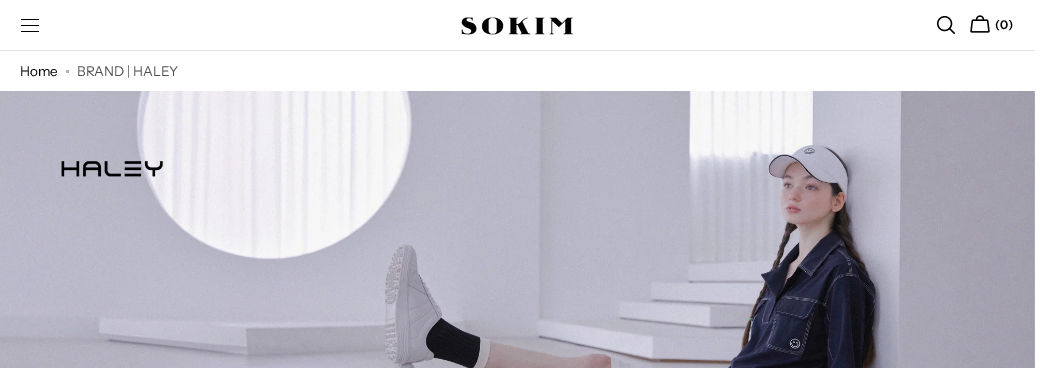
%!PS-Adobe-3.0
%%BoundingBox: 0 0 1050 368
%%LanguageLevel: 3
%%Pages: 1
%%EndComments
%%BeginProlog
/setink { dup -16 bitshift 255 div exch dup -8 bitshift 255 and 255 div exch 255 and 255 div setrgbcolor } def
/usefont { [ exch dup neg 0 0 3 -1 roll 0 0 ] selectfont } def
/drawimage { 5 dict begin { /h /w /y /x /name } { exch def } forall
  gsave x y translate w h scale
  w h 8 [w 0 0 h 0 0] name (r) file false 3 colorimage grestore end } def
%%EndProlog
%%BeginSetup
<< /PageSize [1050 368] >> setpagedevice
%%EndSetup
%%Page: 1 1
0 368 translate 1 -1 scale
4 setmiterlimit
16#FFFFFF setink
0 0 1050 368 rectfill
[
    [21 19 18 1 16#000000]
    [21 25 18 1 16#000000]
    [21 31 18 1 16#000000]
] { aload pop setink rectfill } forall
(img1.raw) 461 17 112 18 drawimage
(img2.raw) 936 15 19 19 drawimage
(img3.raw) 970 15 20 18 drawimage
/InstrumentSans-SemiBold 12 usefont
995 29 moveto (\(0\)) show
16#E1E1E1 setink
0 50 1035 1 rectfill
/InstrumentSans-Regular 13.5 usefont
16#000000 setink
20 76 moveto (Home) show
16#B3B3B3 setink
66 70 3 3 rectfill
16#4D4D4D setink
77 76 moveto (BRAND | HALEY) show
(img4.raw) 0 91 1035 277 drawimage
showpage
%%EOF
